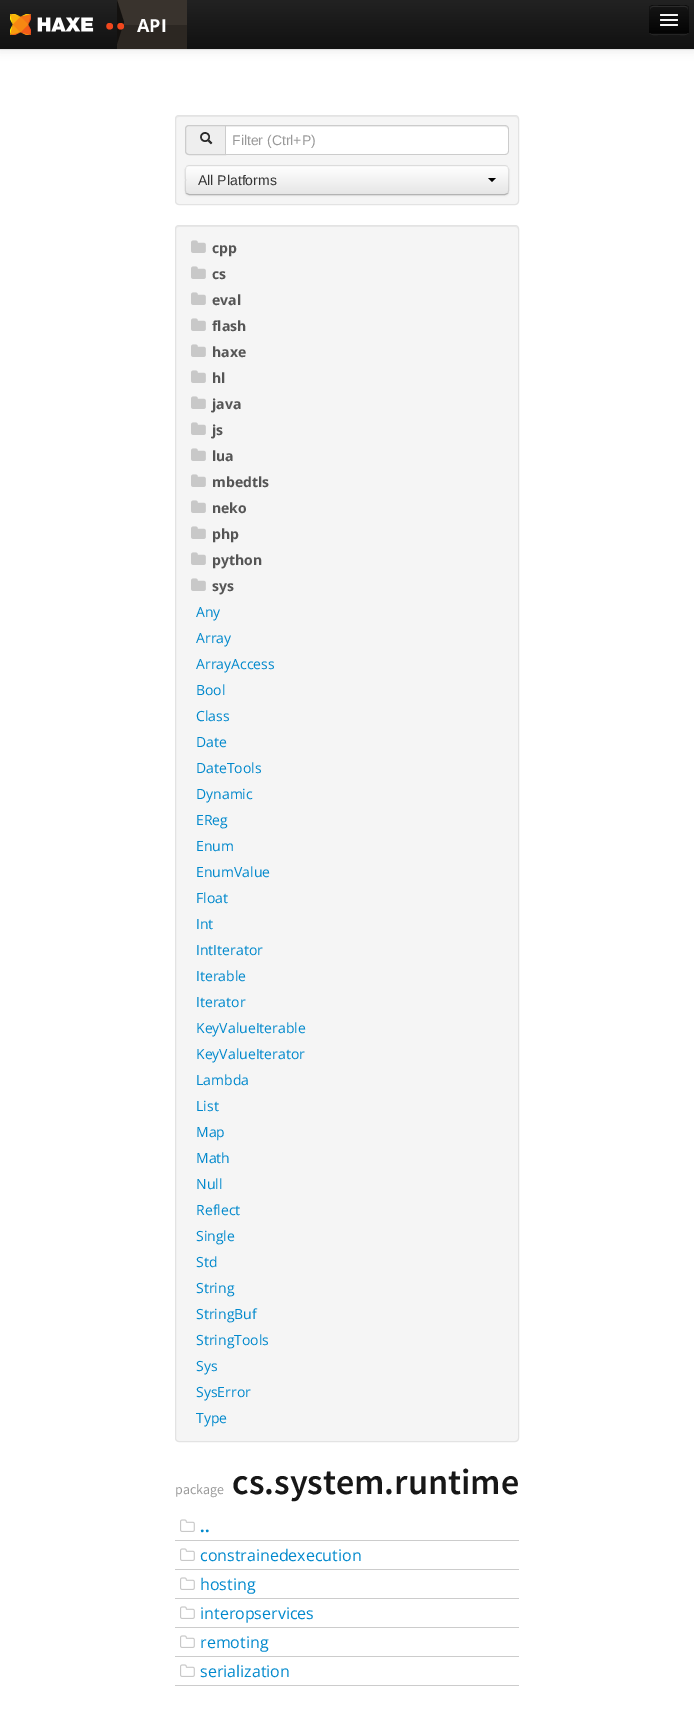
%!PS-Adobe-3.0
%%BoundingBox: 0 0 694 1710
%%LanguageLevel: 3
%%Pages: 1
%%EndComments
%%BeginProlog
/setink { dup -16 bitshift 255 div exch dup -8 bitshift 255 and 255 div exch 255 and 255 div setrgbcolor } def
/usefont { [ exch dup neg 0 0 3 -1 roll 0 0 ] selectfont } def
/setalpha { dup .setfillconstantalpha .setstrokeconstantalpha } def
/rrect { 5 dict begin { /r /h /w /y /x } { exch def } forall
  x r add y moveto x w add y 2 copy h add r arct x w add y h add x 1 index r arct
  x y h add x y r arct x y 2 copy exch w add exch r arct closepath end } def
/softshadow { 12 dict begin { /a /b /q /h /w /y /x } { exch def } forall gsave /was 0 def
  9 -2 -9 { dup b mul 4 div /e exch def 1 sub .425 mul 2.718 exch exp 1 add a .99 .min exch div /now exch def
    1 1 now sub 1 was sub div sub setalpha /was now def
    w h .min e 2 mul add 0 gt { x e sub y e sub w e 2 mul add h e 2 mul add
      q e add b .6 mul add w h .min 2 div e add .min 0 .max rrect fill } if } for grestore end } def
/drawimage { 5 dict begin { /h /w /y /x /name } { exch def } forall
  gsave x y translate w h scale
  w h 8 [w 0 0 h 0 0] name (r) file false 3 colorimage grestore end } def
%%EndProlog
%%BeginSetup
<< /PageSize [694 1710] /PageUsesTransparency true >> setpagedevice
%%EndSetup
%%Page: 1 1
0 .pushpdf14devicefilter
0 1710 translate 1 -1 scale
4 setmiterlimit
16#FFFFFF setink
0 0 694 1710 rectfill
16#EEEEEE setink
0 49 694 1 rectfill
16#000000 setink
0 1 694 49 0 5 0.1 softshadow
gsave 0 0 moveto 694 0 lineto 694 49 lineto 0 49 lineto closepath clip newpath
<< /ShadingType 2 /ColorSpace /DeviceRGB /Coords [347 0 347 49] /Extend [true true] /Function << /FunctionType 2 /Domain [0 1] /C0 [0.133 0.133 0.133] /C1 [0.067 0.067 0.067] /N 1 >> >> shfill grestore
(img1.raw) 10 14 84 21 drawimage
16#39332D setink
117 0 70 25 rectfill
16#2C2722 setink
117 25 70 24 rectfill
16#13110F setink
117 44 moveto 117 0 lineto 124 22 lineto closepath fill
/OpenSans-Bold 40 usefont
16#F1471D setink
104 29 moveto (..) show
/OpenSans-Bold 18 usefont
16#FFFFFF setink
137 32 moveto (API) show
16#272727 setink
649 30 moveto 649 36 654 35 658 35 curveto 680 35 lineto 684 35 689 36 689 30 curveto 689 32 687 34 685 34 curveto 653 34 lineto 651 34 649 32 649 30 curveto closepath fill
16#0E0E0E setink
649 5 40 29 4 rrect fill
gsave
649 5 40 29 4 rrect clip newpath
gsave 649 6 moveto 689 6 lineto 689 33 lineto 649 33 lineto closepath clip newpath
<< /ShadingType 2 /ColorSpace /DeviceRGB /Coords [669 6 669 33] /Extend [true true] /Function << /FunctionType 2 /Domain [0 1] /C0 [0.082 0.082 0.082] /C1 [0.016 0.016 0.016] /N 1 >> >> shfill grestore
grestore
16#2C2C2C setink
653 7 moveto 685 7 lineto 687 7 688 8 688 10 curveto 688 5 684 6 679.5 6 curveto 658.5 6 lineto 654 6 650 5 650 10 curveto 650 8 651 7 653 7 curveto closepath fill
0.25 setalpha
16#000000 setink
687.5 32.5 moveto 687 33 686 33.5 685 33.5 curveto 653 33.5 lineto 652 33.5 651 33 650.5 32.5 curveto stroke
1 setalpha
16#0B0B0B setink
660 15.5 moveto 659 17.5 663.5 17 663.5 17 curveto 674.5 17 lineto 674.5 17 679 17.5 678 15.5 curveto 677 16.5 670.5 16 669 16 curveto 667.5 16 661 16.5 660 15.5 curveto closepath fill
16#F5F5F5 setink
660 14 18 2 1 rrect fill
16#080808 setink
660 20.5 moveto 659 22.5 663.5 22 663.5 22 curveto 674.5 22 lineto 674.5 22 679 22.5 678 20.5 curveto 677 21.5 670.5 21 669 21 curveto 667.5 21 661 21.5 660 20.5 curveto closepath fill
16#F5F5F5 setink
660 19 18 2 1 rrect fill
660 24 18 2 1 rrect fill
175 115 344 90 4 rrect fill
16#E9E9E9 setink
179 117 moveto 515 117 lineto 517 117 518 118 518 120 curveto 518 118 517 116 515 116 curveto 179 116 lineto 177 116 176 118 176 120 curveto 176 118 177 117 179 117 curveto closepath fill
16#E3E3E3 setink
175.5 115.5 343 89 3.5 rrect stroke
16#EEEEEE setink
189 125.5 moveto 225.5 125.5 lineto 225.5 154.5 lineto 189 154.5 lineto 187 154.5 185.5 153 185.5 151 curveto 185.5 129 lineto 185.5 127 187 125.5 189 125.5 curveto closepath gsave fill grestore
16#CCCCCC setink
stroke
(img2.raw) 200 132 13 13 drawimage
16#FFFFFF setink
226 125 moveto 505 125 lineto 507 125 509 127 509 129 curveto 509 151 lineto 509 153 507 155 505 155 curveto 226 155 lineto closepath fill
16#ECECEC setink
226 127 moveto 505 127 lineto 507 127 508 128 508 130 curveto 508 129 lineto 508 127 507 126 505 126 curveto 226 126 lineto closepath fill
16#CCCCCC setink
226 125 moveto 505 125 lineto 507 125 509 127 509 129 curveto 509 151 lineto 509 153 507 155 505 155 curveto 226 155 lineto closepath 226 126 moveto 505 126 lineto 507 126 508 127 508 129 curveto 508 151 lineto 508 153 507 154 505 154 curveto 226 154 lineto closepath eofill
/LiberationSans-Regular 14 usefont
16#999999 setink
232 145 moveto (Filter \(Ctrl+P\)) show
16#000000 setink
185 166 324 30 4 1 0.05 softshadow
16#F5F5F5 setink
185 165 324 30 4 rrect fill
gsave
185 165 324 30 4 rrect clip newpath
gsave 185 166 moveto 509 166 lineto 509 194 lineto 185 194 lineto closepath clip newpath
<< /ShadingType 2 /ColorSpace /DeviceRGB /Coords [347 166 347 194] /Extend [true true] /Function << /FunctionType 2 /Domain [0 1] /C0 [1 1 1] /C1 [0.902 0.902 0.902] /N 1 >> >> shfill grestore
grestore
16#B3B3B3 setink
507.5 193.5 moveto 505 194.5 lineto 189 194.5 lineto 186.5 193.5 lineto stroke
0.1 setalpha
16#000000 setink
186.5 193.5 moveto 184.5 191.5 185.5 183 185.5 180 curveto 185.5 177 184.5 168.5 186.5 166.5 curveto 189 165.5 lineto 505 165.5 lineto 507.5 166.5 lineto 509.5 168.5 508.5 177 508.5 180 curveto 508.5 183 509.5 191.5 507.5 193.5 curveto stroke
1 setalpha
16#333333 setink
198 185 moveto (All Platforms) show
16#000000 setink
488 178 moveto 496 178 lineto 492 182 lineto closepath fill
16#F5F5F5 setink
175 225 344 1217 4 rrect fill
16#E9E9E9 setink
179 227 moveto 515 227 lineto 517 227 518 228 518 230 curveto 518 228 517 226 515 226 curveto 179 226 lineto 177 226 176 228 176 230 curveto 176 228 177 227 179 227 curveto closepath fill
16#E3E3E3 setink
175.5 225.5 343 1216 3.5 rrect stroke
(img3.raw) 191 240 15 13 drawimage
/OpenSans-Bold 14 usefont
16#555555 setink
212 253 moveto (cpp) show
(img3.raw) 191 266 15 13 drawimage
212 279 moveto (cs) show
(img3.raw) 191 292 15 13 drawimage
212 305 moveto (eval) show
(img3.raw) 191 318 15 13 drawimage
212 331 moveto (flash) show
(img3.raw) 191 344 15 13 drawimage
212 357 moveto (haxe) show
(img3.raw) 191 370 15 13 drawimage
212 383 moveto (hl) show
(img3.raw) 191 396 15 13 drawimage
212 409 moveto (java) show
(img3.raw) 191 422 15 13 drawimage
212 435 moveto (js) show
(img3.raw) 191 448 15 13 drawimage
212 461 moveto (lua) show
(img3.raw) 191 474 15 13 drawimage
212 487 moveto (mbedtls) show
(img3.raw) 191 500 15 13 drawimage
212 513 moveto (neko) show
(img3.raw) 191 526 15 13 drawimage
212 539 moveto (php) show
(img3.raw) 191 552 15 13 drawimage
212 565 moveto (python) show
(img3.raw) 191 578 15 13 drawimage
212 591 moveto (sys) show
/OpenSans-Regular 14 usefont
16#0088CC setink
[
    [(Any) 196 617]
    [(Array) 196 643]
    [(ArrayAccess) 196 669]
    [(Bool) 196 695]
    [(Class) 196 721]
    [(Date) 196 747]
    [(DateTools) 196 773]
    [(Dynamic) 196 799]
    [(EReg) 196 825]
    [(Enum) 196 851]
    [(EnumValue) 196 877]
    [(Float) 196 903]
    [(Int) 196 929]
    [(IntIterator) 196 955]
    [(Iterable) 196 981]
    [(Iterator) 196 1007]
    [(KeyValueIterable) 196 1033]
    [(KeyValueIterator) 196 1059]
    [(Lambda) 196 1085]
    [(List) 196 1111]
    [(Map) 196 1137]
    [(Math) 196 1163]
    [(Null) 196 1189]
    [(Reflect) 196 1215]
    [(Single) 196 1241]
    [(Std) 196 1267]
    [(String) 196 1293]
    [(StringBuf) 196 1319]
    [(StringTools) 196 1345]
    [(Sys) 196 1371]
    [(SysError) 196 1397]
    [(Type) 196 1423]
] { aload pop moveto show } forall
/SourceSansPro-Regular 14 usefont
16#999999 setink
175 1494 moveto (package) show
/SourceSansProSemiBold-SemiBold 36 usefont
16#171717 setink
232 1494 moveto (cs.system.runtime) show
(img4.raw) 180 1519 15 13 drawimage
/OpenSans-Bold 16 usefont
16#0088CC setink
200 1532 moveto (..) show
16#CCCCCC setink
175 1540 344 1 rectfill
175 1569 344 1 rectfill
(img4.raw) 180 1548 15 13 drawimage
/OpenSans-Regular 16 usefont
16#0088CC setink
200 1561 moveto (constrainedexecution) show
16#CCCCCC setink
175 1598 344 1 rectfill
(img4.raw) 180 1577 15 13 drawimage
16#0088CC setink
200 1590 moveto (hosting) show
16#CCCCCC setink
175 1627 344 1 rectfill
(img4.raw) 180 1606 15 13 drawimage
16#0088CC setink
200 1619 moveto (interopservices) show
16#CCCCCC setink
175 1656 344 1 rectfill
(img4.raw) 180 1635 15 13 drawimage
16#0088CC setink
200 1648 moveto (remoting) show
16#CCCCCC setink
175 1685 344 1 rectfill
(img4.raw) 180 1664 15 13 drawimage
16#0088CC setink
200 1677 moveto (serialization) show
.poppdf14devicefilter showpage
%%EOF
